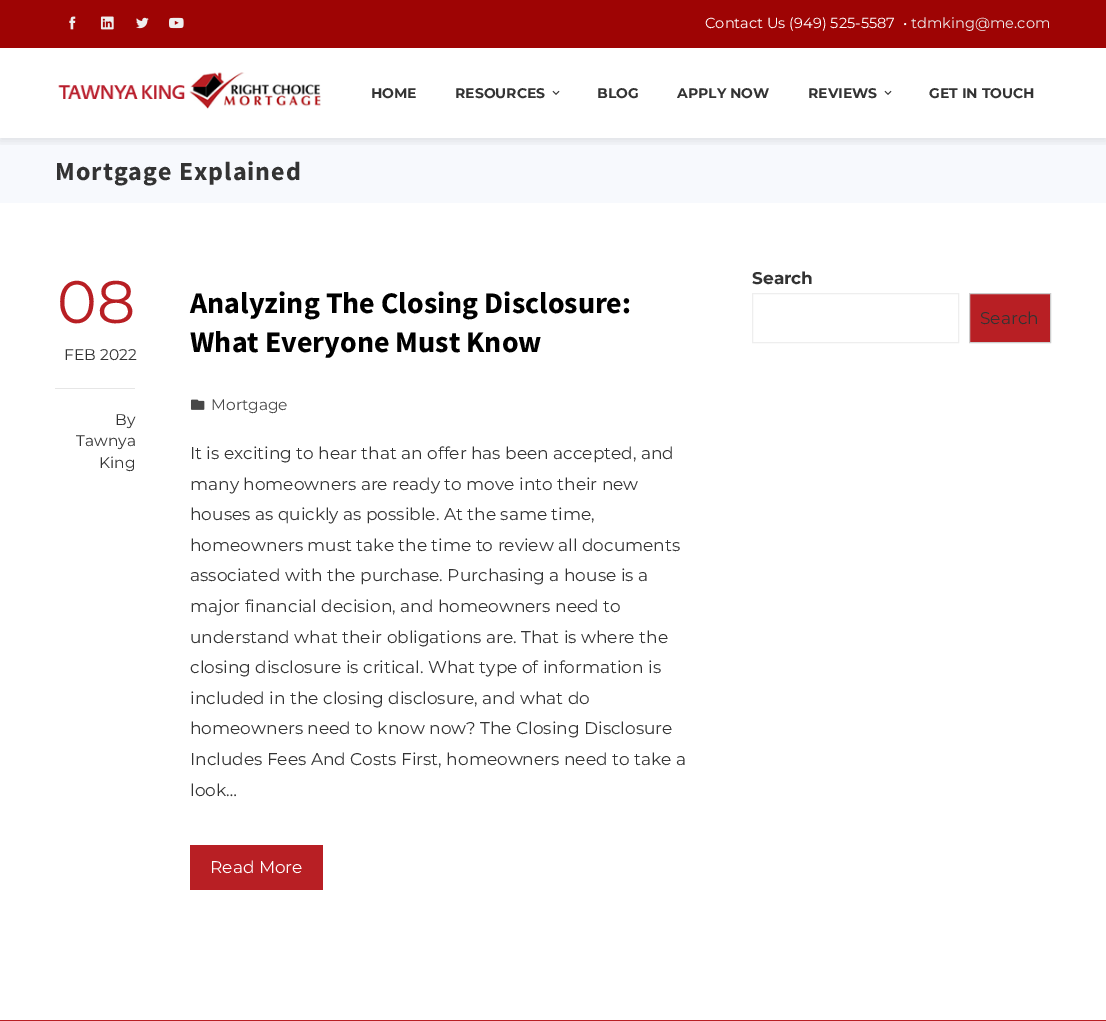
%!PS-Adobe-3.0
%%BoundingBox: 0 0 1106 1021
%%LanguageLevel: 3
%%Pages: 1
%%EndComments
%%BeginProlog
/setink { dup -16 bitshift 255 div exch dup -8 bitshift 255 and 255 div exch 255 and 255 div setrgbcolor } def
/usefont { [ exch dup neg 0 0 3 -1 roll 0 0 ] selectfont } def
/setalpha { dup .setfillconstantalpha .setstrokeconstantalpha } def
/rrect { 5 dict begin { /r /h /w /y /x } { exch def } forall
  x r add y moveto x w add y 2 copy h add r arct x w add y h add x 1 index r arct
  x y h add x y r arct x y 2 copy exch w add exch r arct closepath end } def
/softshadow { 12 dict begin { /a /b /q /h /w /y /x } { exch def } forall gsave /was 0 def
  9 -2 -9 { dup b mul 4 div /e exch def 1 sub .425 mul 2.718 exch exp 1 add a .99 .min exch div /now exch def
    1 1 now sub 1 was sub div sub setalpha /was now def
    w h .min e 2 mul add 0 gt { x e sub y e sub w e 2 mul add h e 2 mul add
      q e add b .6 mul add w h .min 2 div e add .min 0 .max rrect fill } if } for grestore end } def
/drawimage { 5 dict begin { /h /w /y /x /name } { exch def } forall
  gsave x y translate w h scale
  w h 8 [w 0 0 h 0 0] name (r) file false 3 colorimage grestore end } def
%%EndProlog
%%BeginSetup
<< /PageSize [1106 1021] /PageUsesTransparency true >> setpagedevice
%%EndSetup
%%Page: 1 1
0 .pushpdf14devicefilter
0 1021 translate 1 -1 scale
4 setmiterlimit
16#FFFFFF setink
0 0 1106 1021 rectfill
16#F7F9FD setink
0 138 1106 65 rectfill
gsave
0 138 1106 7 rectclip
16#000000 setink
0 51 1106 90 0 5 0.1 softshadow
grestore
16#9E0404 setink
0 0 1106 48 rectfill
(img1.raw) 69 16 7 14 drawimage
(img2.raw) 100 16 14 14 drawimage
(img3.raw) 136 17 13 12 drawimage
(img4.raw) 169 17 15 12 drawimage
/Montserrat-Regular 14.6 usefont
16#FFFFFF setink
705 28 moveto (Contact Us \(949\) 525-5587  •) show
16#EEEEEE setink
911 28 moveto (tdmking@me.com) show
(img5.raw) 58 72 263 37 drawimage
/Montserrat-Bold 14 usefont
16#333333 setink
371 98 moveto (HOME) show
455 98 moveto (RESOURCES) show
(img6.raw) 552 90 8 5 drawimage
[
    [(BLOG) 597 98]
    [(APPLY NOW) 677 98]
    [(REVIEWS) 808 98]
] { aload pop moveto show } forall
(img6.raw) 884 90 8 5 drawimage
929 98 moveto (GET IN TOUCH) show
/SourceSansPro-Bold 26 usefont
55 180 moveto 1 0 (Mortgage Explained) ashow
/Montserrat-Regular 60 usefont
16#B81F24 setink
57 323 moveto (08) show
/Montserrat-Regular 15.5 usefont
16#333333 setink
64 360 moveto (FEB 2022) show
16#E6E6E6 setink
55 388 80 1 rectfill
16#333333 setink
[
    [(By) 115 425]
    [(Tawnya) 76 446]
    [(King) 99 468]
] { aload pop moveto show } forall
/SourceSansPro-Bold 30 usefont
16#000000 setink
190 313 moveto (Analyzing The Closing Disclosure:) show
190 352 moveto (What Everyone Must Know) show
(img7.raw) 190 399 15 11 drawimage
/Montserrat-Regular 15.5 usefont
16#474747 setink
211 410 moveto (Mortgage) show
/Montserrat-Regular 17 usefont
16#333333 setink
[
    [(It is exciting to hear that an offer has been accepted, and) 190 459]
    [(many homeowners are ready to move into their new) 190 490]
    [(houses as quickly as possible. At the same time,) 190 520]
    [(homeowners must take the time to review all documents) 190 551]
    [(associated with the purchase. Purchasing a house is a) 190 581]
    [(major financial decision, and homeowners need to) 190 612]
    [(understand what their obligations are. That is where the) 190 643]
    [(closing disclosure is critical. What type of information is) 190 673]
    [(included in the closing disclosure, and what do) 190 704]
    [(homeowners need to know now? The Closing Disclosure) 190 734]
    [(Includes Fees And Costs First, homeowners need to take a) 190 765]
    [(look…) 190 796]
] { aload pop moveto show } forall
16#B81F24 setink
190 845 133 45 rectfill
16#FFFFFF setink
210 873 moveto (Read More) show
/Montserrat-Bold 17 usefont
16#333333 setink
752 284 moveto (Search) show
16#EEEEEE setink
752.5 293.5 206 49 rectstroke
16#B81F24 setink
969.5 293.5 moveto 1050.5 293.5 lineto 1050.5 342.5 lineto 969.5 342.5 lineto closepath gsave fill grestore
16#CCCCCC setink
stroke
/Montserrat-Regular 17 usefont
16#333333 setink
980 324 moveto (Search) show
16#B81F24 setink
0 1020 1106 1 rectfill
.poppdf14devicefilter showpage
%%EOF
